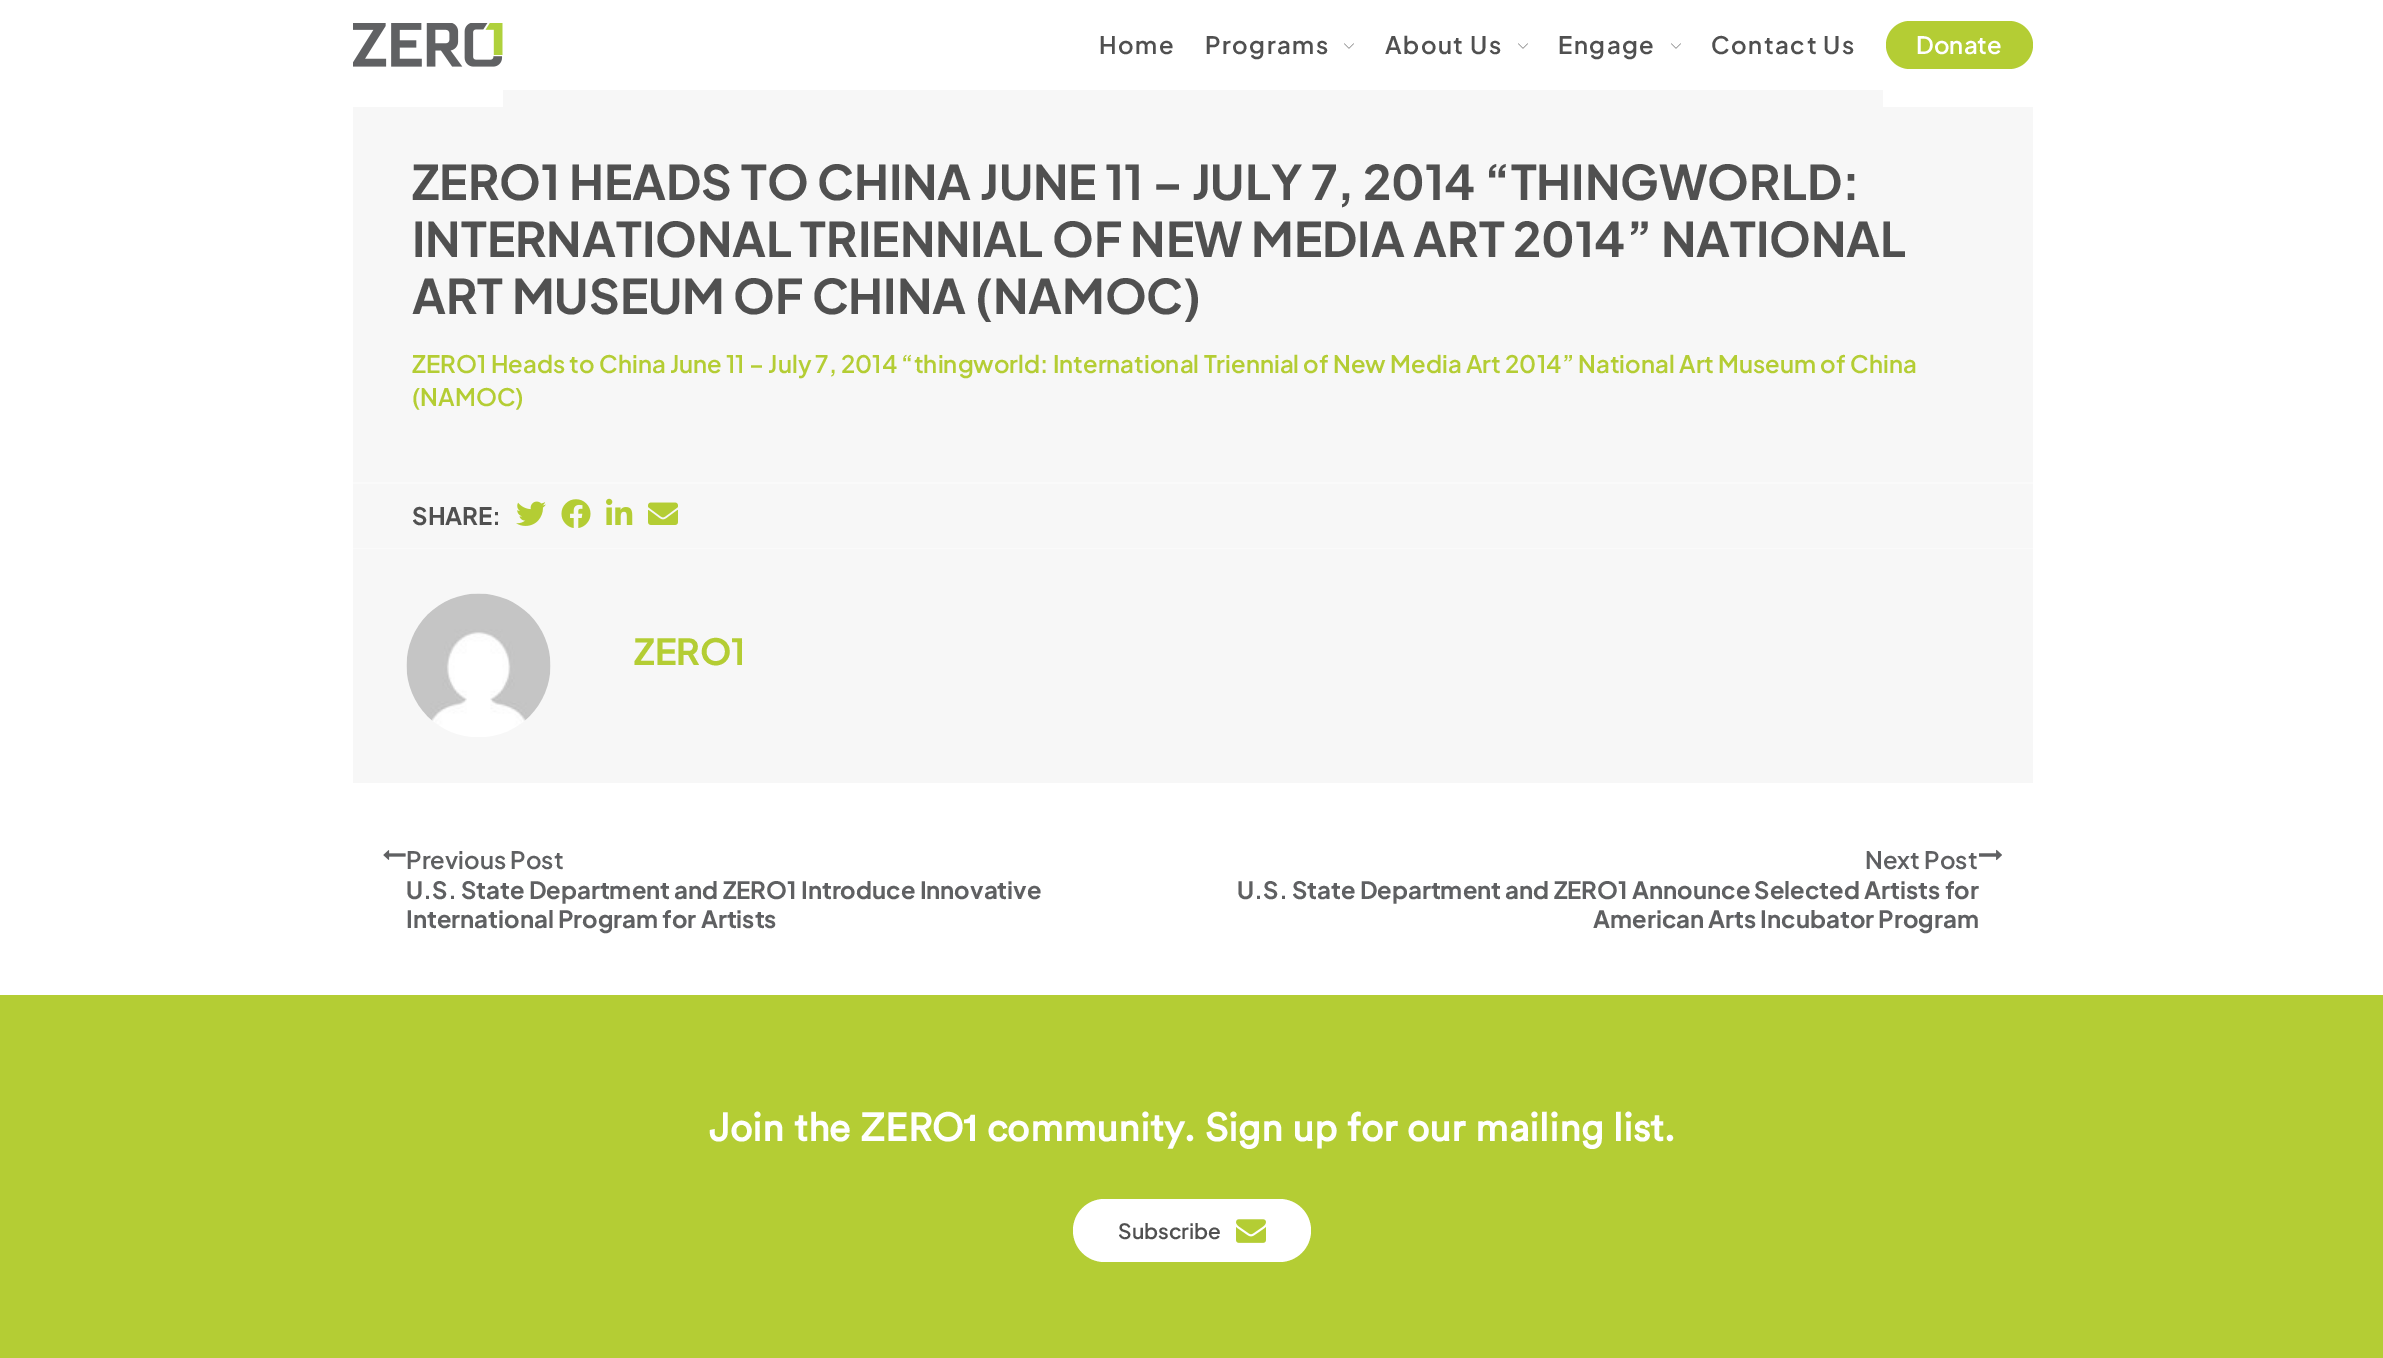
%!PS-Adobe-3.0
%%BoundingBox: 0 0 2383 1358
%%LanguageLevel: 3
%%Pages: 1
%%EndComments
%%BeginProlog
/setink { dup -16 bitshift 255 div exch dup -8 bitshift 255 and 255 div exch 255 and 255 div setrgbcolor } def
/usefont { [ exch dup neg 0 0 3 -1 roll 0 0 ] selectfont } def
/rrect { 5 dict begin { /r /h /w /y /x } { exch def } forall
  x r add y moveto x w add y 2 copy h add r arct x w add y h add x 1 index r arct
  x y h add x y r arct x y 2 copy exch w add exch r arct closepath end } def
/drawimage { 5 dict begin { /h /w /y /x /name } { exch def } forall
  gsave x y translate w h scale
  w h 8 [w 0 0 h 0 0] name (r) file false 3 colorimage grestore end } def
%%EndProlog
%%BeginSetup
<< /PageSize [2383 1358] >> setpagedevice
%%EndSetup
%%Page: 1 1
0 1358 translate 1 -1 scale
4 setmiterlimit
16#FFFFFF setink
0 0 2383 1358 rectfill
(img1.raw) 353 23 150 44 drawimage
/PlusJakartaSans-SemiBold 24 usefont
16#505050 setink
1099 54 moveto 1.5 0 (Home) ashow
1205 54 moveto 1.5 0 (Programs) ashow
(img2.raw) 1344 43 10 6 drawimage
1385 54 moveto 1.5 0 (About Us) ashow
(img2.raw) 1518 43 10 6 drawimage
1558 54 moveto 1.5 0 (Engage) ashow
(img2.raw) 1671 43 10 6 drawimage
1711 54 moveto 1.5 0 (Contact Us) ashow
16#B4CD34 setink
1886 21 147 48 24 rrect fill
16#FFFFFF setink
1916 54 moveto (Donate) show
16#F7F7F7 setink
503 90 1380 17 rectfill
353 107 1680 375 rectfill
/PlusJakartaSans-Bold 47.7 usefont
16#505050 setink
[
    [(ZERO1 HEADS TO CHINA JUNE 11 – JULY 7, 2014 “THINGWORLD:) 412 200]
    [(INTERNATIONAL TRIENNIAL OF NEW MEDIA ART 2014” NATIONAL) 412 257]
    [(ART MUSEUM OF CHINA \(NAMOC\)) 412 314]
] { aload pop moveto show } forall
/PlusJakartaSans-SemiBold 24 usefont
16#B4CD34 setink
412 373 moveto (ZERO1 Heads to China June 11 – July 7, 2014 “thingworld: International Triennial of New Media Art 2014” National Art Museum of China) show
412 406 moveto (\(NAMOC\)) show
[
    [353 484 1680 64 16#F7F7F7]
    [353 548 1680 1 16#FAFAFA]
    [353 482 1680 2 16#FAFAFA]
] { aload pop setink rectfill } forall
/PlusJakartaSans-Bold 24 usefont
16#505050 setink
412 525 moveto (SHARE:) show
(img3.raw) 516 501 30 25 drawimage
(img4.raw) 561 499 30 29 drawimage
(img5.raw) 606 498 27 27 drawimage
(img6.raw) 648 502 30 23 drawimage
16#F7F7F7 setink
353 549 1680 234 rectfill
(img7.raw) 406 593 145 144 drawimage
/PlusJakartaSans-Bold 36 usefont
16#B4CD34 setink
634 665 moveto (ZERO1) show
(img8.raw) 383 850 23 10 drawimage
/PlusJakartaSans-SemiBold 24 usefont
16#5F6062 setink
406 869 moveto (Previous Post) show
/PlusJakartaSans-Bold 23.85 usefont
406 899 moveto (U.S. State Department and ZERO1 Introduce Innovative) show
406 928 moveto (International Program for Artists) show
/PlusJakartaSans-SemiBold 24 usefont
1865 869 moveto (Next Post) show
/PlusJakartaSans-Bold 23.85 usefont
1237 899 moveto (U.S. State Department and ZERO1 Announce Selected Artists for) show
1593 928 moveto (American Arts Incubator Program) show
(img9.raw) 1979 849 23 12 drawimage
16#B4CD34 setink
0 995 2383 363 rectfill
/Circular-Bold 39 usefont
16#FFFFFF setink
709 1141 moveto (Join the ZERO1 community. Sign up for our mailing list.) show
1073 1199 238 63 31.5 rrect fill
/PlusJakartaSans-SemiBold 21 usefont
16#505050 setink
1118 1239 moveto (Subscribe) show
(img10.raw) 1236 1219 30 24 drawimage
showpage
%%EOF
